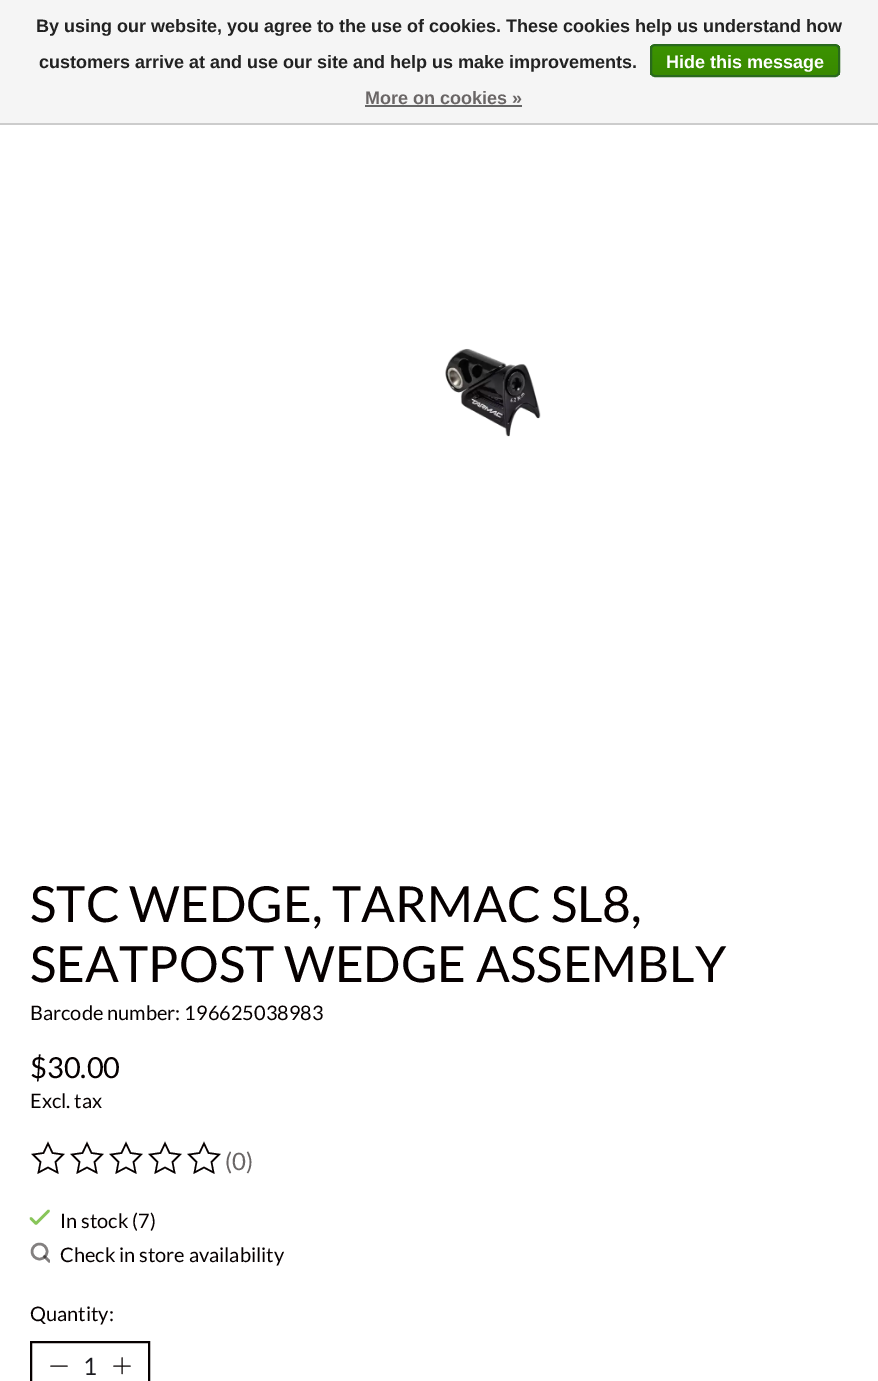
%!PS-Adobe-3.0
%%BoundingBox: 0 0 878 1381
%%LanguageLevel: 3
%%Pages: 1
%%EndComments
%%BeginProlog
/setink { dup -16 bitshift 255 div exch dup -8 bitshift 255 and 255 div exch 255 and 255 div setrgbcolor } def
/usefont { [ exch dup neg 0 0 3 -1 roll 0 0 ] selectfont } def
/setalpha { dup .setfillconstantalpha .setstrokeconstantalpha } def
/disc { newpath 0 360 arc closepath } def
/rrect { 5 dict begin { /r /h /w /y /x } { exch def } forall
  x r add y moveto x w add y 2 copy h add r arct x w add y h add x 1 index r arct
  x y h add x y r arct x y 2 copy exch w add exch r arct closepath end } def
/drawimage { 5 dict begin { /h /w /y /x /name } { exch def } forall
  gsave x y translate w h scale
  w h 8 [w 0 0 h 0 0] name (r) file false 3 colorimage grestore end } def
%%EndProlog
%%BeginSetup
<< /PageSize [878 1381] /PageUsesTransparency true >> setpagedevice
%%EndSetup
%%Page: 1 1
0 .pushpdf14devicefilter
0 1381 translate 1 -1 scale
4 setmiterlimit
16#FFFFFF setink
0 0 878 1381 rectfill
16#F5F5F5 setink
0 0 878 123 rectfill
16#CCCCCC setink
0 123 878 2 rectfill
/LiberationSans-Bold 18 usefont
16#222222 setink
36 32 moveto (By using our website, you agree to the use of cookies. These cookies help us understand how) show
39 68 moveto (customers arrive at and use our site and help us make improvements.) show
gsave
650 44 190 33 5 rrect clip newpath
gsave 650 45 moveto 840 45 lineto 840 75 lineto 650 75 lineto closepath clip newpath
<< /ShadingType 2 /ColorSpace /DeviceRGB /Coords [745 45 745 75] /Extend [true true] /Function << /FunctionType 2 /Domain [0 1] /C0 [0.235 0.576 0] /C1 [0.224 0.541 0] /N 1 >> >> shfill grestore
grestore
16#29691D setink
2 setlinewidth
651 45 188 31 4 rrect stroke
16#FFFFFF setink
666 68 moveto (Hide this message) show
16#6A6666 setink
365 104 moveto (More on cookies ») show
16#666666 setink
365 105 157 2 rectfill
(img1.raw) 445 348 96 89 drawimage
/Lato-Regular 49.75 usefont
16#060000 setink
30 922 moveto (STC WEDGE, TARMAC SL8,) show
30 982 moveto (SEATPOST WEDGE ASSEMBLY) show
/Lato-Regular 20 usefont
30 1020 moveto (Barcode number: 196625038983) show
/Lato-Regular 29 usefont
30 1078 moveto ($30.00) show
/Lato-Regular 20 usefont
30 1108 moveto (Excl. tax) show
1.5 setlinewidth
48 1143.5 moveto 52.5 1153 lineto 63 1154.5 lineto 55.5 1162 lineto 57.5 1172.5 lineto 48 1167.5 lineto 38.5 1172.5 lineto 40.5 1162 lineto 33 1154.5 lineto 43.5 1153 lineto closepath stroke
87 1143.5 moveto 91.5 1153 lineto 102 1154.5 lineto 94.5 1162 lineto 96.5 1172.5 lineto 87 1167.5 lineto 77.5 1172.5 lineto 79.5 1162 lineto 72 1154.5 lineto 82.5 1153 lineto closepath stroke
126 1143.5 moveto 130.5 1153 lineto 141 1154.5 lineto 133.5 1162 lineto 135.5 1172.5 lineto 126 1167.5 lineto 116.5 1172.5 lineto 118.5 1162 lineto 111 1154.5 lineto 121.5 1153 lineto closepath stroke
165 1143.5 moveto 169.5 1153 lineto 180 1154.5 lineto 172.5 1162 lineto 174.5 1172.5 lineto 165 1167.5 lineto 155.5 1172.5 lineto 157.5 1162 lineto 150 1154.5 lineto 160.5 1153 lineto closepath stroke
204 1143.5 moveto 208.5 1153 lineto 219 1154.5 lineto 211.5 1162 lineto 213.5 1172.5 lineto 204 1167.5 lineto 194.5 1172.5 lineto 196.5 1162 lineto 189 1154.5 lineto 199.5 1153 lineto closepath stroke
/Lato-Regular 24 usefont
16#6A6666 setink
225 1170 moveto (\(0\)) show
16#88C559 setink
2.5 setlinewidth
1 setlinecap
1 setlinejoin
31 1218.5 moveto 36 1223.5 lineto 48.5 1211 lineto stroke
/Lato-Regular 20 usefont
16#060000 setink
60 1228 moveto (In stock \(7\)) show
16#838080 setink
0 setlinecap
0 setlinejoin
39.5 1251.5 7.5 disc stroke
gsave
30 1242 20 21 rectclip
0.5 setalpha
16#060000 setink
1 setlinecap
1 setlinejoin
49.5 1261.5 moveto 44.5 1256.5 lineto stroke
grestore
16#060000 setink
60 1262 moveto (Check in store availability) show
30 1321 moveto (Quantity:) show
2 setlinewidth
31 1342 118 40 rectstroke
1.1 setlinewidth
1 setlinecap
1 setlinejoin
51 1366 moveto 67 1366 lineto stroke
/Lato-Regular 24 usefont
16#1C1C21 setink
83 1375 moveto (1) show
16#060000 setink
122 1358 moveto 122 1373.5 lineto 114 1366 moveto 130 1366 lineto stroke
.poppdf14devicefilter showpage
%%EOF
